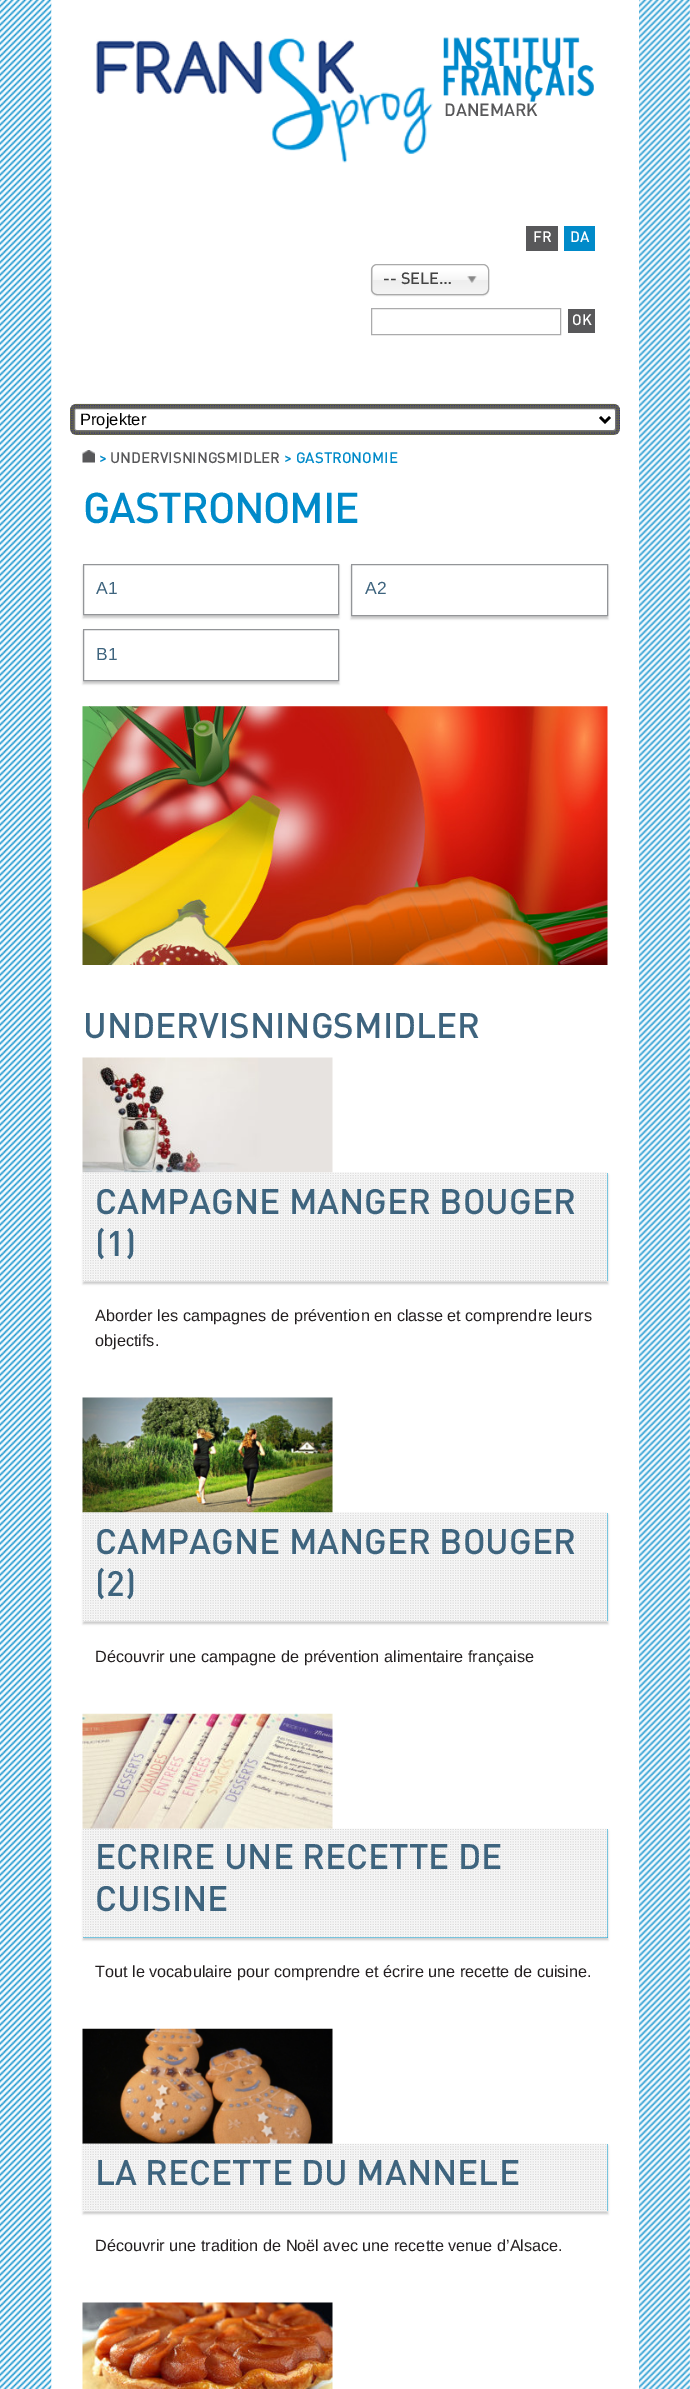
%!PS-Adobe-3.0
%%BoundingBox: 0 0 690 2389
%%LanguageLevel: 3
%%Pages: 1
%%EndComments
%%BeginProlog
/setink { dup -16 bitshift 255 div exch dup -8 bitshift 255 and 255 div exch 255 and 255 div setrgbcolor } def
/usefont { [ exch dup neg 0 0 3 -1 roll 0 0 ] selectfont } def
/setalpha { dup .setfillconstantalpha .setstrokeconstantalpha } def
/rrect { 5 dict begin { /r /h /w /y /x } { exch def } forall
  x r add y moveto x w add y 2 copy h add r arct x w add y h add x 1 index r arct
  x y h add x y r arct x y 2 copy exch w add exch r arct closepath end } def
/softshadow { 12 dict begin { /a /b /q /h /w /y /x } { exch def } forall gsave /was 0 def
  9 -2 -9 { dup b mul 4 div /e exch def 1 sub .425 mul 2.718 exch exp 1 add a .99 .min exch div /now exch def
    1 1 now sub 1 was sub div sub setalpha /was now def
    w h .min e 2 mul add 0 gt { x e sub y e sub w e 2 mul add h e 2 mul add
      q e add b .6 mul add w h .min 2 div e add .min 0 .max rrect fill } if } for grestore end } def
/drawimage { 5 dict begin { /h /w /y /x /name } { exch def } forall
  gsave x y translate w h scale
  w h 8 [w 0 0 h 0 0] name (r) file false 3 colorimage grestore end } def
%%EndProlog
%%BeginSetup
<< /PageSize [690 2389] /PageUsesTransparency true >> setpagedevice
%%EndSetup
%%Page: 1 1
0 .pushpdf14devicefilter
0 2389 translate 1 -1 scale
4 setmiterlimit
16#FFFFFF setink
0 0 690 2389 rectfill
(img1.raw) 0 0 52 2389 drawimage
(img2.raw) 639 0 51 2389 drawimage
(img3.raw) 96 38 337 125 drawimage
(img4.raw) 443 37 151 65 drawimage
/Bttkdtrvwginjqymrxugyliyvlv-Medium 17.5 usefont
16#58585A setink
444 116 moveto (DANEMARK) show
526 226 32 25 rectfill
/Bttkdtrvwginjqymrxugyliyvlv-Medium 15 usefont
16#FFFFFF setink
533 242 moveto (FR) show
16#008AC9 setink
564 226 31 25 rectfill
16#FFFFFF setink
570 242 moveto (DA) show
16#000000 setink
371 265 118 31 6 0.5 0.1 softshadow
gsave 373 265 115 29 5 rrect clip newpath
<< /ShadingType 2 /ColorSpace /DeviceRGB /Coords [430 265 430 294] /Extend [true true] /Function << /FunctionType 3 /Domain [0 1] /Functions [<< /FunctionType 2 /Domain [0 1] /C0 [1 1 1] /C1 [1 1 1] /N 1 >> << /FunctionType 2 /Domain [0 1] /C0 [1 1 1] /C1 [0.965 0.965 0.965] /N 1 >> << /FunctionType 2 /Domain [0 1] /C0 [0.965 0.965 0.965] /C1 [0.933 0.933 0.933] /N 1 >> << /FunctionType 2 /Domain [0 1] /C0 [0.933 0.933 0.933] /C1 [0.957 0.957 0.957] /N 1 >>] /Bounds [0.2 0.5 0.52] /Encode [0 1 0 1 0 1 0 1] >> >> shfill grestore
16#AAAAAA setink
371.5 264.5 117 30 5.5 rrect stroke
/Bttkdtrvwginjqymrxugyliyvlv-Medium 16.25 usefont
16#444444 setink
383 284 moveto (-- SELE…) show
(img5.raw) 467 276 10 7 drawimage
16#ABABAC setink
371.5 308.5 189 26 rectstroke
16#58585A setink
568 309 27 24 rectfill
/Bttkdtrvwginjqymrxugyliyvlv-Medium 15 usefont
16#FFFFFF setink
572 325 moveto (OK) show
(img6.raw) 70 403 550 32 drawimage
74.5 408.5 541 22 2 rrect gsave fill grestore
16#767676 setink
stroke
16#000000 setink
2.5 setlinewidth
600 417 moveto 605 422 lineto 610 417 lineto stroke
/LiberationSans-Regular 16.5 usefont
80 425 moveto (Projekter) show
(img7.raw) 82 450 13 13 drawimage
/Bttkdtrvwginjqymrxugyliyvlv-Medium 15 usefont
16#008AC9 setink
99 463 moveto (>) show
16#58585A setink
110 463 moveto (UNDERVISNINGSMIDLER) show
16#008AC9 setink
284 463 moveto (> GASTRONOMIE) show
/Bttkdtrvwginjqymrxugyliyvlv-Medium 42.5 usefont
83 523 moveto -1.25 0 (GASTRONOMIE) ashow
gsave
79 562 moveto 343 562 lineto 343 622 lineto 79 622 lineto closepath 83 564 moveto 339 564 lineto 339 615 lineto 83 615 lineto closepath eoclip newpath
16#000000 setink
83 566 256 52 0 1 0.2 softshadow
grestore
16#939598 setink
1 setlinewidth
83.5 564.5 255 50 rectstroke
/LiberationSans-Regular 17.5 usefont
16#3E647E setink
96 594 moveto (A1) show
gsave
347 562 moveto 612 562 lineto 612 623 lineto 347 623 lineto closepath 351 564 moveto 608 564 lineto 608 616 lineto 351 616 lineto closepath eoclip newpath
16#000000 setink
351 566 257 53 0 1 0.2 softshadow
grestore
16#939598 setink
351.5 564.5 256 51 rectstroke
16#3E647E setink
365 594 moveto (A2) show
gsave
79 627 moveto 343 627 lineto 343 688 lineto 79 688 lineto closepath 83 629 moveto 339 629 lineto 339 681 lineto 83 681 lineto closepath eoclip newpath
16#000000 setink
83 631 256 53 0 1 0.2 softshadow
grestore
16#939598 setink
83.5 629.5 255 51 rectstroke
16#3E647E setink
96 660 moveto (B1) show
(img8.raw) 82 706 526 259 drawimage
/Bttkdtrvwginjqymrxugyliyvlv-Medium 35 usefont
83 1038 moveto (UNDERVISNINGSMIDLER) show
(img9.raw) 82 1057 251 116 drawimage
16#000000 setink
83 1175 525 109 0 1 0.2 softshadow
16#0099CC setink
607 1173 1 108 rectfill
(img10.raw) 82 1172 526 110 drawimage
16#3E647E setink
95 1214 moveto (CAMPAGNE MANGER BOUGER) show
95 1256 moveto (\(1\)) show
/LiberationSans-Regular 16.25 usefont
16#231F20 setink
95 1321 moveto (Aborder les campagnes de prévention en classe et comprendre leurs) show
95 1346 moveto (objectifs.) show
(img11.raw) 82 1397 251 116 drawimage
16#000000 setink
83 1515 525 109 0 1 0.2 softshadow
16#0099CC setink
607 1513 1 108 rectfill
(img12.raw) 82 1512 526 110 drawimage
/Bttkdtrvwginjqymrxugyliyvlv-Medium 35 usefont
16#3E647E setink
95 1554 moveto (CAMPAGNE MANGER BOUGER) show
95 1596 moveto (\(2\)) show
/LiberationSans-Regular 16.25 usefont
16#231F20 setink
95 1662 moveto (Découvrir une campagne de prévention alimentaire française) show
(img13.raw) 82 1713 251 116 drawimage
16#000000 setink
83 1831 525 109 0 1 0.2 softshadow
16#0099CC setink
83 1829 525 109 rectfill
(img14.raw) 82 1828 526 110 drawimage
/Bttkdtrvwginjqymrxugyliyvlv-Medium 35 usefont
16#3E647E setink
95 1869 moveto (ECRIRE UNE RECETTE DE) show
95 1911 moveto (CUISINE) show
/LiberationSans-Regular 16.25 usefont
16#231F20 setink
95 1977 moveto (Tout le vocabulaire pour comprendre et écrire une recette de cuisine.) show
(img15.raw) 82 2028 251 116 drawimage
16#000000 setink
83 2146 525 68 0 1 0.2 softshadow
16#0099CC setink
607 2144 1 67 rectfill
(img16.raw) 82 2143 526 69 drawimage
/Bttkdtrvwginjqymrxugyliyvlv-Medium 35 usefont
16#3E647E setink
95 2185 moveto (LA RECETTE DU MANNELE) show
/LiberationSans-Regular 16.25 usefont
16#231F20 setink
95 2251 moveto (Découvrir une tradition de Noël avec une recette venue d’Alsace.) show
(img17.raw) 82 2302 251 87 drawimage
.poppdf14devicefilter showpage
%%EOF
